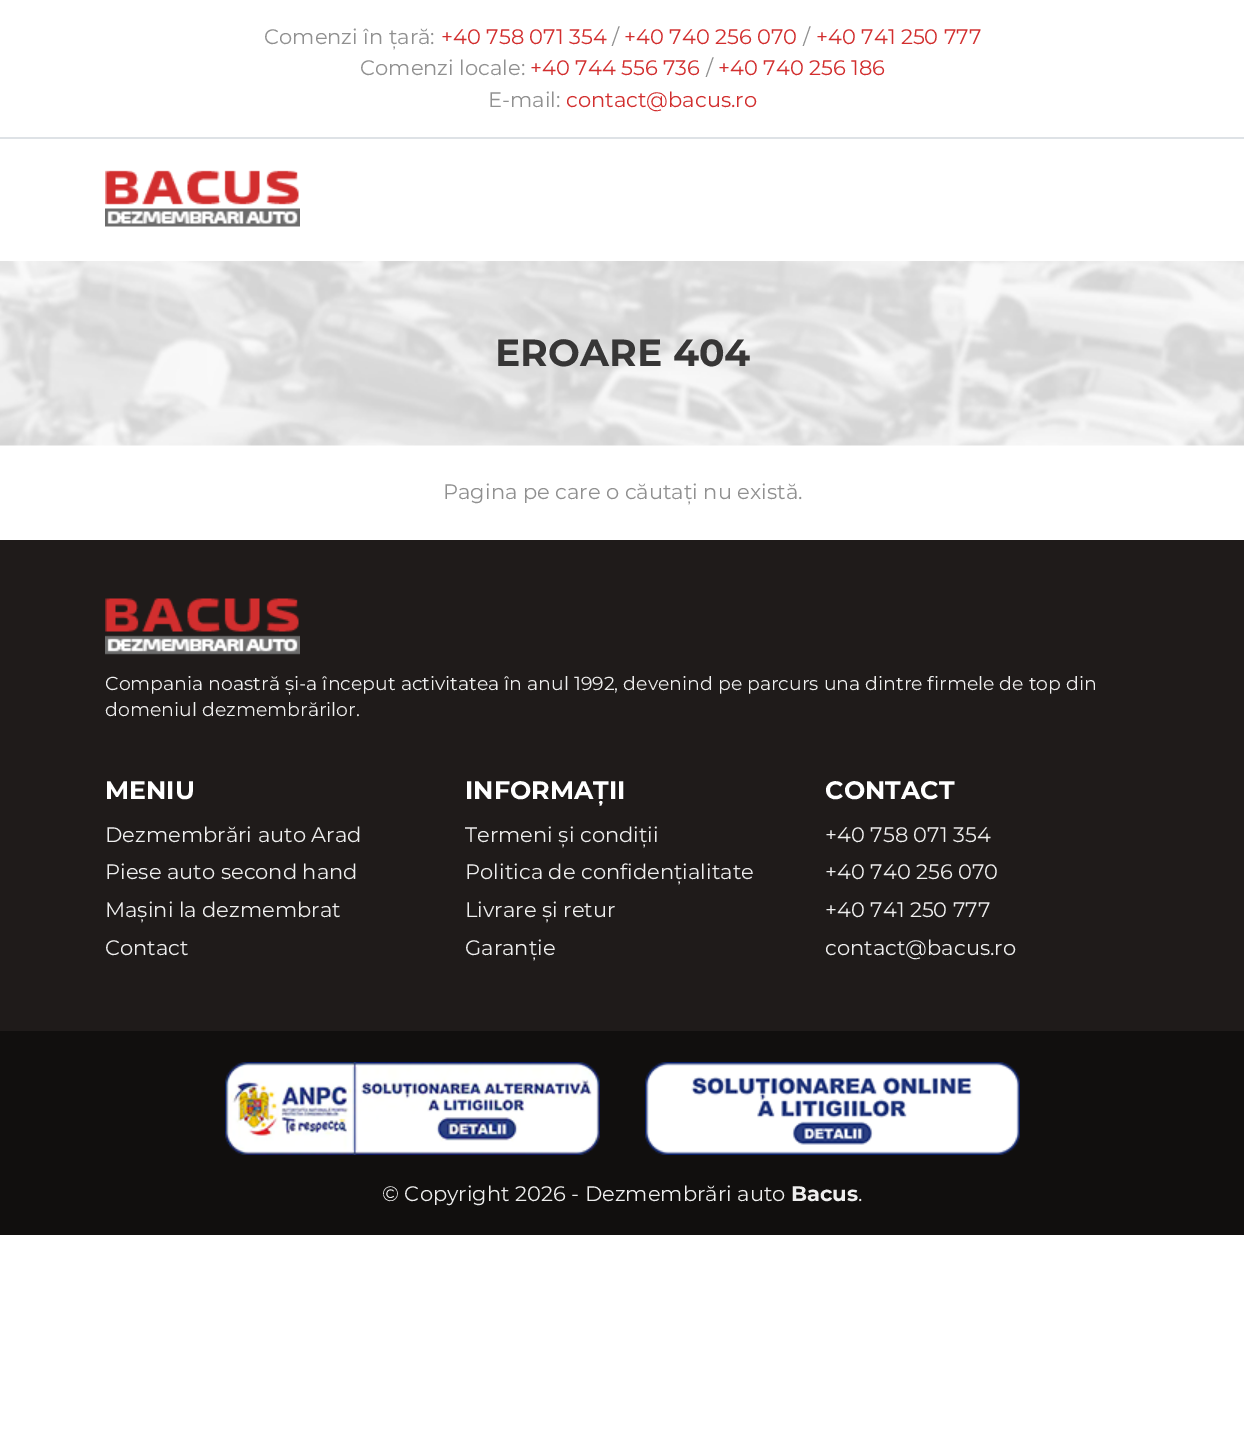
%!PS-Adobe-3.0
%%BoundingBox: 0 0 1244 1454
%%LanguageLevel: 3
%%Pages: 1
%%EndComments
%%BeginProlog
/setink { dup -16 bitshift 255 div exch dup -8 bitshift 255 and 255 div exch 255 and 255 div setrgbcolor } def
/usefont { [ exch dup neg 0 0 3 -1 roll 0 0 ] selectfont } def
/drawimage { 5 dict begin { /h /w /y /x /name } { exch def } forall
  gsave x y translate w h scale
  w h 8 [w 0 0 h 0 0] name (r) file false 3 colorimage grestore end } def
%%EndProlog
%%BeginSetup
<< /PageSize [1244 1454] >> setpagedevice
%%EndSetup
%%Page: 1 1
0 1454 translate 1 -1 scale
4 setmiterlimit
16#FFFFFF setink
0 0 1244 1454 rectfill
16#DEE2E6 setink
0 137 1244 2 rectfill
/Montserrat-Regular 21 usefont
16#909090 setink
264 44 moveto (Comenzi în țară:) show
16#D22E2E setink
441 44 moveto (+40 758 071 354) show
16#909090 setink
612 44 moveto (/) show
16#D22E2E setink
624 44 moveto (+40 740 256 070) show
16#909090 setink
803 44 moveto (/) show
16#D22E2E setink
816 44 moveto (+40 741 250 777) show
16#909090 setink
360 75 moveto (Comenzi locale:) show
16#D22E2E setink
530 75 moveto (+40 744 556 736) show
16#909090 setink
706 75 moveto (/) show
16#D22E2E setink
718 75 moveto (+40 740 256 186) show
16#909090 setink
488 107 moveto (E-mail:) show
16#D22E2E setink
566 107 moveto (contact@bacus.ro) show
(img1.raw) 105 170 195 57 drawimage
(img2.raw) 0 261 1244 185 drawimage
/Montserrat-Bold 37.75 usefont
16#373636 setink
495 366 moveto (EROARE 404) show
/Montserrat-Regular 21 usefont
16#909090 setink
443 499 moveto (Pagina pe care o căutați nu există.) show
16#1F1B1A setink
0 540 1244 491 rectfill
(img3.raw) 105 598 195 57 drawimage
/Montserrat-Regular 18.9 usefont
16#EEEEEE setink
105 690 moveto (Compania noastră și-a început activitatea în anul 1992, devenind pe parcurs una dintre firmele de top din) show
105 716 moveto (domeniul dezmembrărilor.) show
/Montserrat-Bold 25.25 usefont
16#FFFFFF setink
105 799 moveto (MENIU) show
/Montserrat-Regular 21 usefont
16#EEEEEE setink
[
    [(Dezmembrări auto Arad) 105 842]
    [(Piese auto second hand) 105 879]
    [(Mașini la dezmembrat) 105 917]
    [(Contact) 105 955]
] { aload pop moveto show } forall
/Montserrat-Bold 25.25 usefont
16#FFFFFF setink
465 799 moveto (INFORMAȚII) show
/Montserrat-Regular 21 usefont
16#EEEEEE setink
[
    [(Termeni și condiții) 465 842]
    [(Politica de confidențialitate) 465 879]
    [(Livrare și retur) 465 917]
    [(Garanție) 465 955]
] { aload pop moveto show } forall
/Montserrat-Bold 25.25 usefont
16#FFFFFF setink
825 799 moveto (CONTACT) show
/Montserrat-Regular 21 usefont
16#EEEEEE setink
[
    [(+40 758 071 354) 825 842]
    [(+40 740 256 070) 825 879]
    [(+40 741 250 777) 825 917]
    [(contact@bacus.ro) 825 955]
] { aload pop moveto show } forall
16#110F0E setink
0 1031 1244 204 rectfill
(img4.raw) 225 1062 375 93 drawimage
(img5.raw) 645 1062 375 93 drawimage
16#EEEEEE setink
382 1201 moveto (© Copyright 2026 - Dezmembrări auto) show
/Montserrat-Bold 21 usefont
791 1201 moveto (Bacus) show
/Montserrat-Regular 21 usefont
858 1201 moveto (.) show
showpage
%%EOF
